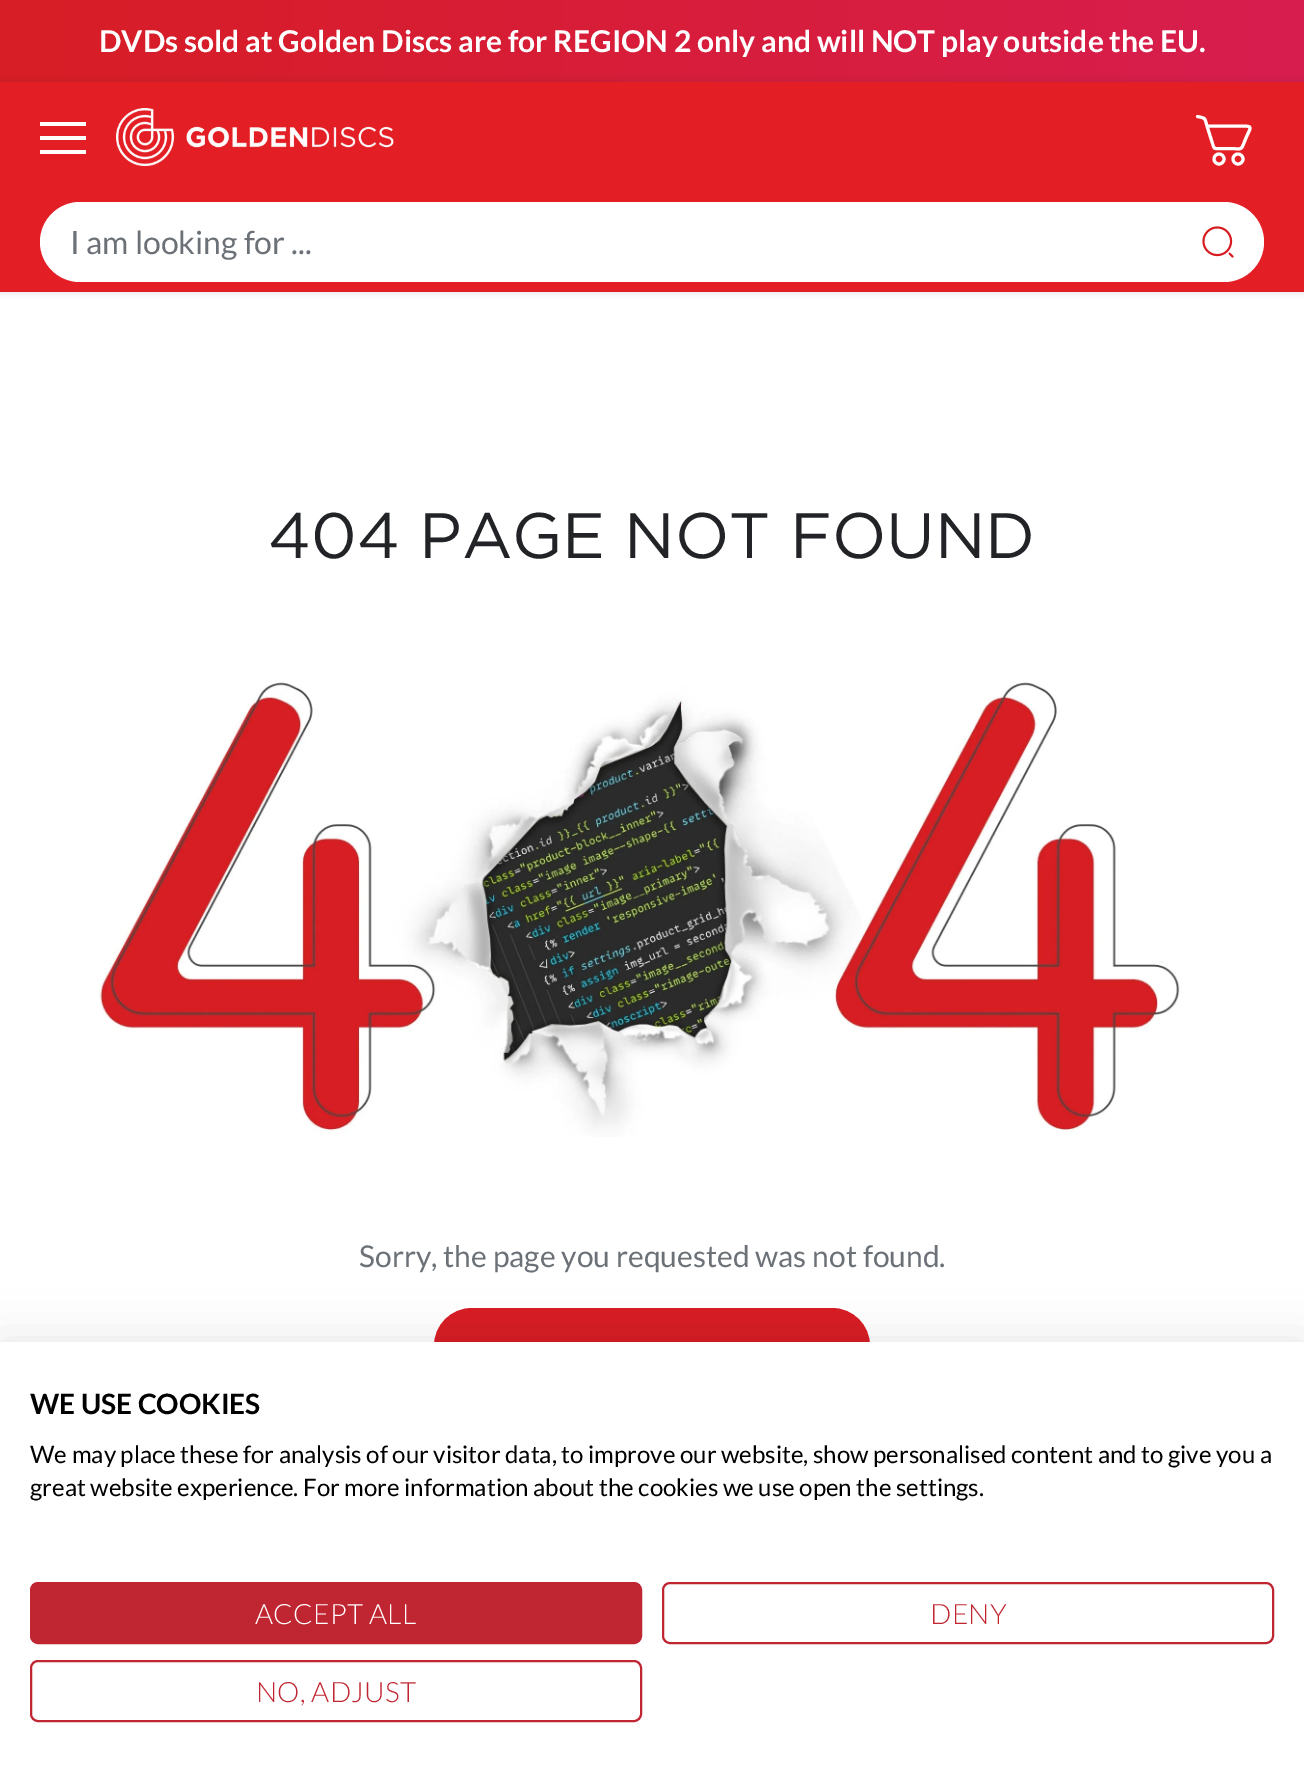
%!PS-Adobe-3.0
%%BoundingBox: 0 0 1304 1775
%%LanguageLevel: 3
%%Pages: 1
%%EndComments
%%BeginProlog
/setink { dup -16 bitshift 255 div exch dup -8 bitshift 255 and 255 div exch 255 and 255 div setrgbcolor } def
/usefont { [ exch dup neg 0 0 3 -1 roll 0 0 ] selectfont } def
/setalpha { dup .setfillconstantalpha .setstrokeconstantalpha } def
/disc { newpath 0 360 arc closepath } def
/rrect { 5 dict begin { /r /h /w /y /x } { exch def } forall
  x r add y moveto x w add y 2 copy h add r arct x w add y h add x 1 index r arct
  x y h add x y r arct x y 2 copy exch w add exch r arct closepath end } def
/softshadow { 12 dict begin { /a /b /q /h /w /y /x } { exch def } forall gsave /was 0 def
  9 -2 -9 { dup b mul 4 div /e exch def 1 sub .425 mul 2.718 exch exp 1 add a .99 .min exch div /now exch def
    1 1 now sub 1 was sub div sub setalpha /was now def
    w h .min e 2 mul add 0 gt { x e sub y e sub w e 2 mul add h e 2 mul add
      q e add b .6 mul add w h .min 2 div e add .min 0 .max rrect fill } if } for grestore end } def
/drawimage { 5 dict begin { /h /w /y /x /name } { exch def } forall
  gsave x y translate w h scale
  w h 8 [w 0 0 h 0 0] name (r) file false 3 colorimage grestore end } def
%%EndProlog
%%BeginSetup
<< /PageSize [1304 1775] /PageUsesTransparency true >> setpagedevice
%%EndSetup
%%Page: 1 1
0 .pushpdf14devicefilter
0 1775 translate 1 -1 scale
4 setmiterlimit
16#FFFFFF setink
0 0 1304 1775 rectfill
gsave 0 0 moveto 1304 0 lineto 1304 82 lineto 0 82 lineto closepath clip newpath
<< /ShadingType 2 /ColorSpace /DeviceRGB /Coords [0 246 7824 246] /Extend [true true] /Function << /FunctionType 3 /Domain [0 1] /Functions [<< /FunctionType 2 /Domain [0 1] /C0 [0.843 0.114 0.145] /C1 [0.843 0.114 0.576] /N 1 >> << /FunctionType 2 /Domain [0 1] /C0 [0.843 0.114 0.576] /C1 [0.843 0.114 0.145] /N 1 >>] /Bounds [0.44] /Encode [0 1 0 1] >> >> shfill grestore
/Lato-Bold 30 usefont
99 52 moveto (DVDs sold at Golden Discs are for REGION 2 only and will NOT play outside the EU.) show
16#000000 setink
-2 80 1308 214 0 3 0.08 softshadow
[
    [0 82 1304 210 16#E31E24]
    [40 122 46 4 16#FFFFFF]
    [40 136 46 4 16#FFFFFF]
    [40 150 46 4 16#FFFFFF]
] { aload pop setink rectfill } forall
(img1.raw) 116 108 278 58 drawimage
3 setlinewidth
1 setlinecap
1 setlinejoin
1197.5 116.5 moveto 1206 118.5 1204.5 117.5 1207 126 curveto 1207 126 moveto 1212.5 143.5 lineto 1214.5 149.5 1213.5 148.5 1219.5 148.5 curveto 1228 148.5 lineto 1244 148.5 1240 152 1246 138 curveto 1250.5 127 1254 126 1241 126 curveto closepath stroke
0 setlinecap
0 setlinejoin
1219 159 5 disc stroke
1238 159 5 disc stroke
80 202 moveto 1174 202 lineto 1174 282 lineto 80 282 lineto 58 282 40 264 40 242 curveto 40 220 58 202 80 202 curveto closepath fill
/Lato-Regular 32 usefont
16#6B7177 setink
70 254 moveto (I am looking for ...) show
16#FFFFFF setink
1172 202 moveto 1224 202 lineto 1246 202 1264 220 1264 242 curveto 1264 264 1246 282 1224 282 curveto 1172 282 lineto closepath fill
(img2.raw) 1202 226 32 32 drawimage
/Gotham-Regular 64 usefont
16#212326 setink
268 558 moveto (404 PAGE NOT FOUND) show
(img3.raw) 98 682 1082 455 drawimage
/Lato-Regular 30 usefont
16#6B7177 setink
359 1267 moveto (Sorry, the page you requested was not found.) show
16#D71C24 setink
436 1310 432 72 36 rrect gsave fill grestore
4 setlinewidth
stroke
16#000000 setink
0 1342 1304 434 0 24 0.1 softshadow
16#FFFFFF setink
0 1342 1304 433 rectfill
/Lato-Bold 28 usefont
16#000000 setink
30 1414 moveto (WE USE COOKIES) show
/Lato-Regular 24 usefont
30 1463 moveto (We may place these for analysis of our visitor data, to improve our website, show personalised content and to give you a) show
30 1496 moveto (great website experience. For more information about the cookies we use open the settings.) show
16#C02631 setink
31 1583 610 60 7 rrect gsave fill grestore
2 setlinewidth
stroke
/Lato-Light 28 usefont
16#FFFFFF setink
255 1624 moveto 0.25 0 (ACCEPT ALL) ashow
16#C02631 setink
663 1583 610 60 7 rrect stroke
930 1624 moveto 0.25 0 (DENY) ashow
31 1661 610 60 7 rrect stroke
256 1702 moveto 0.25 0 (NO, ADJUST) ashow
.poppdf14devicefilter showpage
%%EOF
